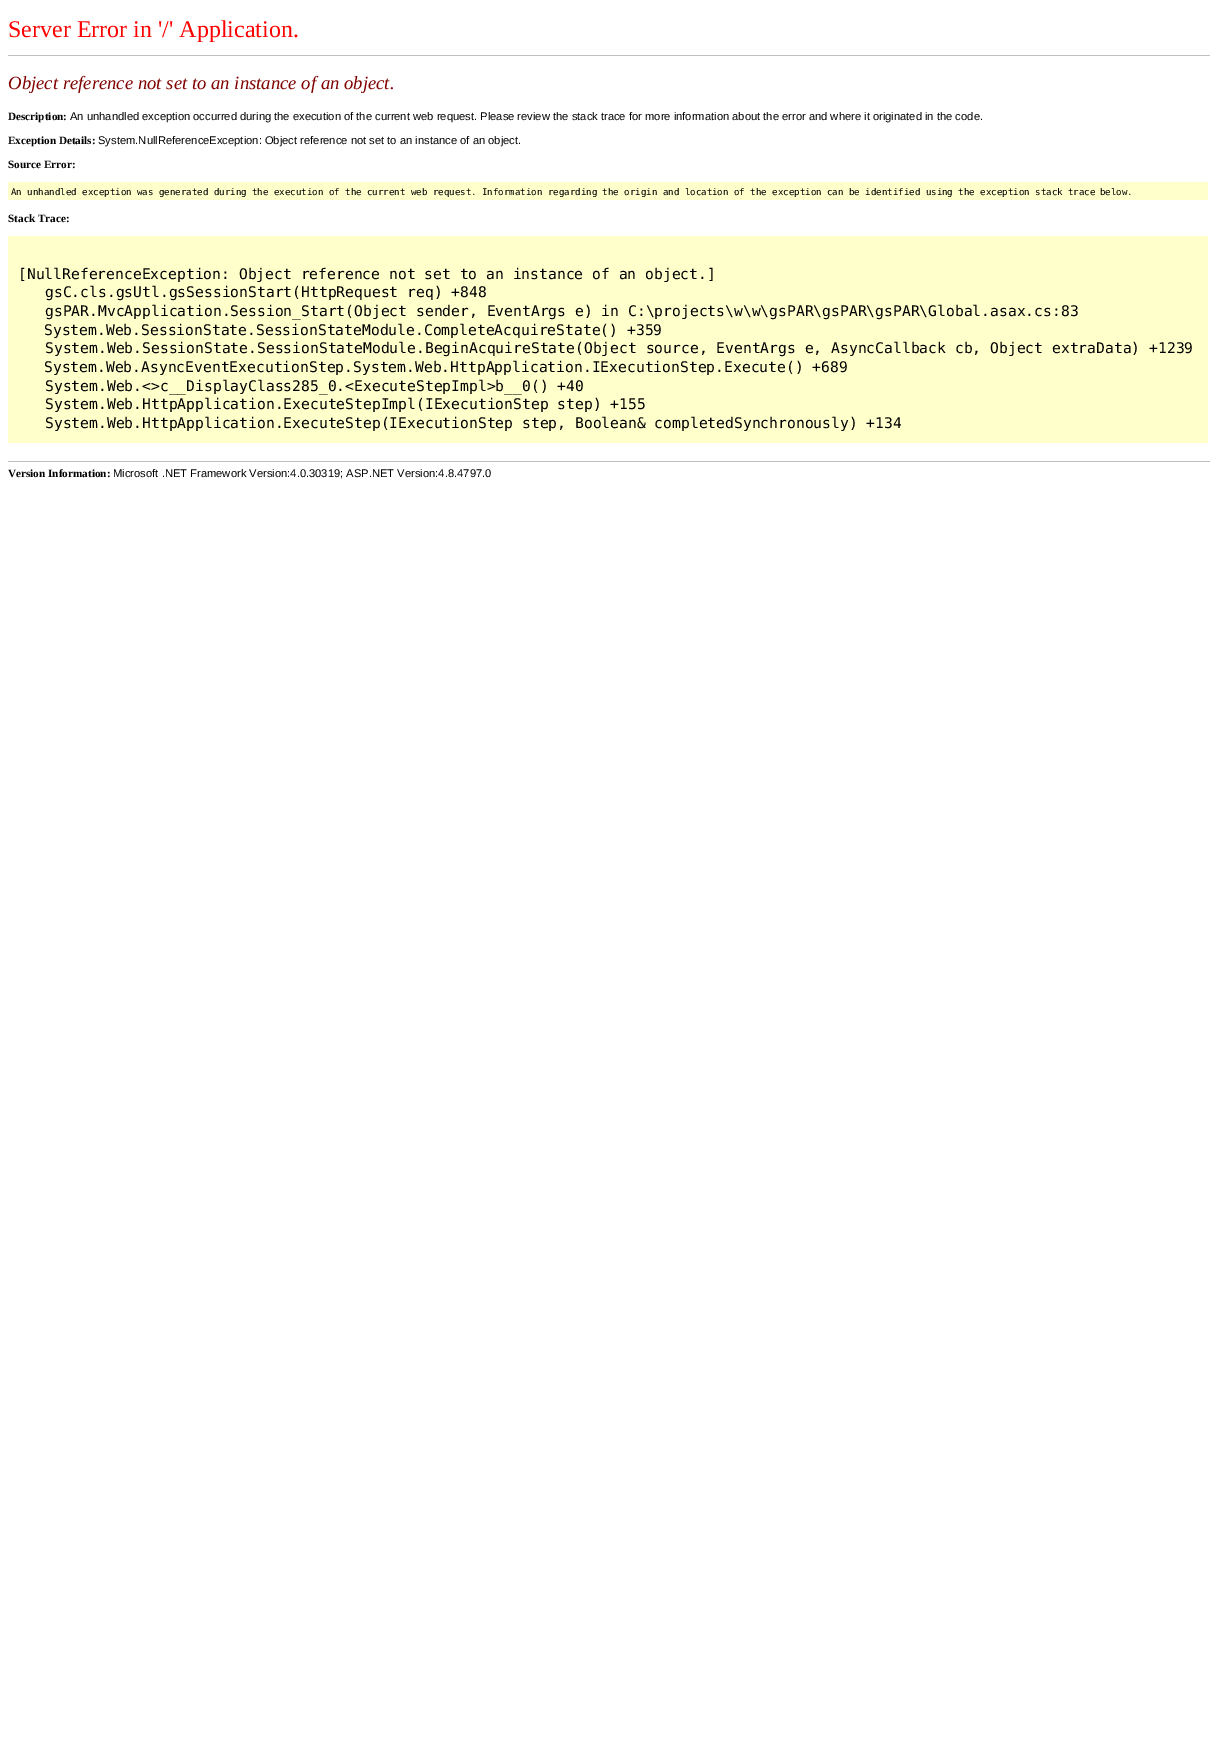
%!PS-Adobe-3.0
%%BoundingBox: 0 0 1216 1741
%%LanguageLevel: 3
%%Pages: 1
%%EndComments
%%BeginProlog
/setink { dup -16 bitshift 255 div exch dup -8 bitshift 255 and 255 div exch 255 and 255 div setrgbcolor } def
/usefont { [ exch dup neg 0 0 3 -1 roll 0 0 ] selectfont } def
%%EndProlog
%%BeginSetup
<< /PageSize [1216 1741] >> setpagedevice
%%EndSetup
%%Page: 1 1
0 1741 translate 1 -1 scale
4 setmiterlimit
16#FFFFFF setink
0 0 1216 1741 rectfill
/LiberationSerif-Regular 24 usefont
16#FF0000 setink
8 37 moveto (Server Error in '/' Application.) show
16#C0C0C0 setink
8 55 1202 1 rectfill
/LiberationSerif-Italic 18.7 usefont
16#800000 setink
8 89 moveto (Object reference not set to an instance of an object.) show
/LiberationSerif-Bold 11.2 usefont
16#000000 setink
8 120 moveto (Description:) show
/LiberationSans-Regular 11.2 usefont
70 120 moveto (An unhandled exception occurred during the execution of the current web request. Please review the stack trace for more information about the error and where it originated in the code.) show
/LiberationSerif-Bold 11.2 usefont
8 144 moveto (Exception Details:) show
/LiberationSans-Regular 11.2 usefont
98 144 moveto (System.NullReferenceException: Object reference not set to an instance of an object.) show
/LiberationSerif-Bold 11.2 usefont
8 168 moveto (Source Error:) show
16#FFFFCC setink
8 182 1200 18 rectfill
/DejaVuSansMono-Regular 9.1 usefont
16#000000 setink
11 195 moveto (An unhandled exception was generated during the execution of the current web request. Information regarding the origin and location of the exception can be identified using the exception stack trace) show
1100 195 moveto (below.) show
/LiberationSerif-Bold 11.2 usefont
8 222 moveto (Stack Trace:) show
16#FFFFCC setink
8 236 1200 207 rectfill
/DejaVuSansMono-Regular 14.67 usefont
16#000000 setink
[
    [([NullReferenceException: Object reference not set to an instance of an object.]) 18 279]
    [(gsC.cls.gsUtl.gsSessionStart\(HttpRequest req\) +848) 45 297]
    [(gsPAR.MvcApplication.Session_Start\(Object sender, EventArgs e\) in C:\\projects\\w\\w\\gsPAR\\gsPAR\\gsPAR\\Global.asax.cs:83) 45 316]
    [(System.Web.SessionState.SessionStateModule.CompleteAcquireState\(\) +359) 44 335]
    [(System.Web.SessionState.SessionStateModule.BeginAcquireState\(Object source, EventArgs e, AsyncCallback cb, Object extraData\) +1239) 45 353]
    [(System.Web.AsyncEventExecutionStep.System.Web.HttpApplication.IExecutionStep.Execute\(\) +689) 44 372]
    [(System.Web.<>c__DisplayClass285_0.<ExecuteStepImpl>b__0\(\) +40) 45 391]
    [(System.Web.HttpApplication.ExecuteStepImpl\(IExecutionStep step\) +155) 45 409]
    [(System.Web.HttpApplication.ExecuteStep\(IExecutionStep step, Boolean& completedSynchronously\) +134) 45 428]
] { aload pop moveto show } forall
16#C0C0C0 setink
8 461 1202 1 rectfill
/LiberationSerif-Bold 11.2 usefont
16#000000 setink
8 477 moveto (Version Information:) show
/LiberationSans-Regular 11.2 usefont
113 477 moveto (Microsoft .NET Framework Version:4.0.30319; ASP.NET Version:4.8.4797.0) show
showpage
%%EOF
